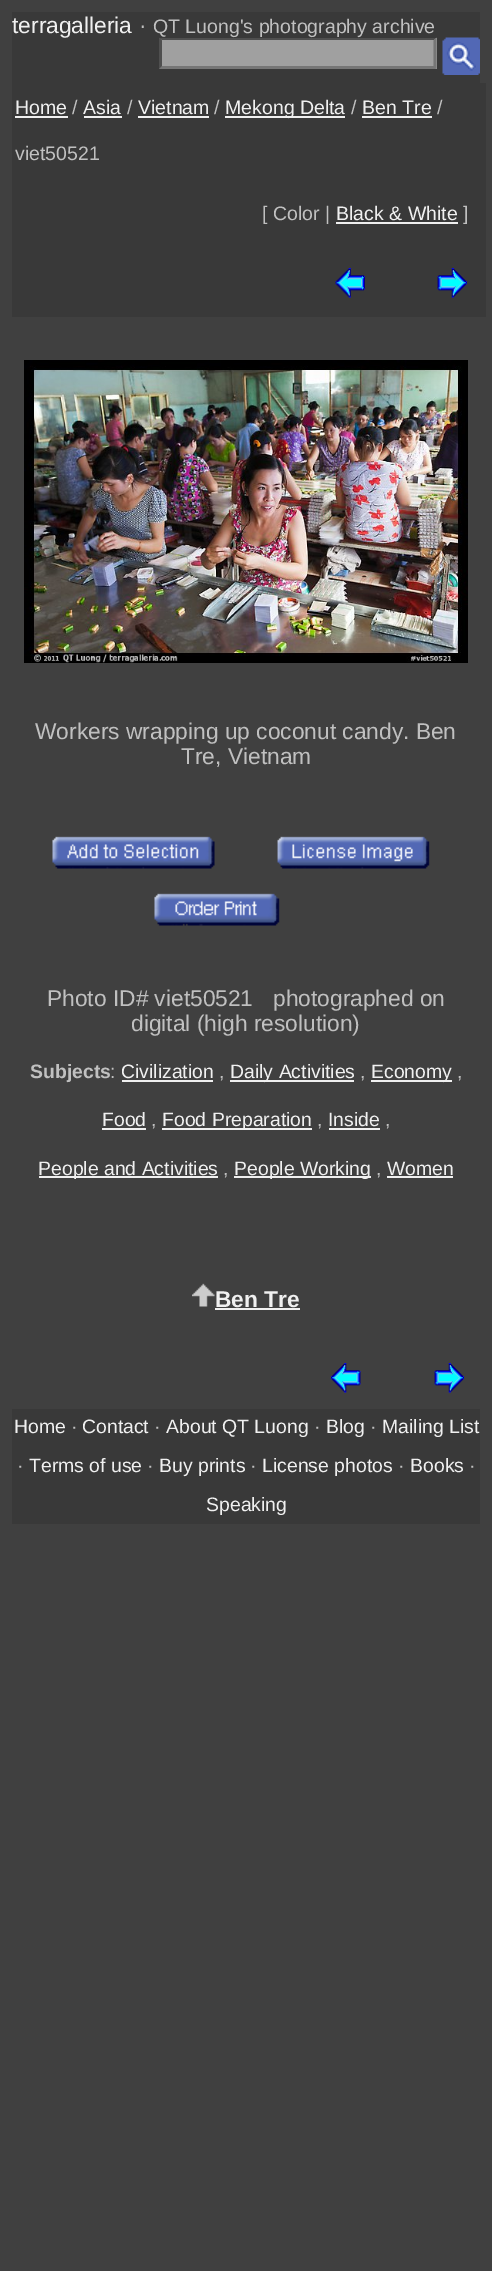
%!PS-Adobe-3.0
%%BoundingBox: 0 0 492 2271
%%LanguageLevel: 3
%%Pages: 1
%%EndComments
%%BeginProlog
/setink { dup -16 bitshift 255 div exch dup -8 bitshift 255 and 255 div exch 255 and 255 div setrgbcolor } def
/usefont { [ exch dup neg 0 0 3 -1 roll 0 0 ] selectfont } def
/drawimage { 5 dict begin { /h /w /y /x /name } { exch def } forall
  gsave x y translate w h scale
  w h 8 [w 0 0 h 0 0] name (r) file false 3 colorimage grestore end } def
%%EndProlog
%%BeginSetup
<< /PageSize [492 2271] >> setpagedevice
%%EndSetup
%%Page: 1 1
0 2271 translate 1 -1 scale
4 setmiterlimit
16#404040 setink
0 0 492 2271 rectfill
16#393939 setink
12 12 468 71 rectfill
/LiberationSans-Regular 22.75 usefont
16#F0F0F0 setink
12 33 moveto (terragalleria) show
16#C0C0C0 setink
139 33 moveto (·) show
/LiberationSans-Regular 19.5 usefont
153 33 moveto (QT Luong's photography archive) show
16#A0A0A0 setink
159 38 278 31 rectfill
16#4F4F4F setink
159 38 moveto 436 38 lineto 434 40 lineto 162 40 lineto closepath fill
16#767676 setink
436.5 37.5 moveto 436.5 69 lineto 433.5 66 lineto 433.5 40.5 lineto closepath fill
436 69 moveto 159 69 lineto 162 66 lineto 434 66 lineto closepath fill
16#4F4F4F setink
159 69 moveto 159 37.5 lineto 162 40.5 lineto 162 66 lineto closepath fill
(img1.raw) 442 37 38 38 drawimage
16#393939 setink
12 83 474 234 rectfill
16#F0F0F0 setink
15 114 moveto (Home) show
15 116 53 2 rectfill
16#C0C0C0 setink
72 114 moveto (/) show
16#F0F0F0 setink
83 114 moveto (Asia) show
84 116 38 2 rectfill
16#C0C0C0 setink
127 114 moveto (/) show
16#F0F0F0 setink
138 114 moveto (Vietnam) show
138 116 71 2 rectfill
16#C0C0C0 setink
214 114 moveto (/) show
16#F0F0F0 setink
225 116 120 2 rectfill
225 114 moveto (Mekong Delta) show
16#C0C0C0 setink
351 114 moveto (/) show
16#F0F0F0 setink
362 114 moveto (Ben Tre) show
362 116 70 2 rectfill
16#C0C0C0 setink
[
    [(/) 437 114]
    [(viet50521) 15 160]
    [([ Color |) 262 220]
] { aload pop moveto show } forall
16#F0F0F0 setink
336 220 moveto (Black & White) show
336 222 122 2 rectfill
16#C0C0C0 setink
463 220 moveto (]) show
(img2.raw) 335 268 30 30 drawimage
(img3.raw) 437 268 30 30 drawimage
(img4.raw) 24 360 444 303 drawimage
/LiberationSans-Regular 22.75 usefont
35 739 moveto (Workers wrapping up coconut candy. Ben) show
181 764 moveto (Tre, Vietnam) show
(img5.raw) 52 836 163 33 drawimage
(img6.raw) 277 836 153 33 drawimage
(img7.raw) 154 893 126 33 drawimage
[
    [(Photo ID# viet50521) 47 1006]
    [(photographed on) 273 1006]
    [(digital \(high resolution\)) 131 1031]
] { aload pop moveto show } forall
/LiberationSans-Bold 19.4 usefont
30 1078 moveto (Subjects) show
/LiberationSans-Regular 19.4 usefont
110 1078 moveto (:) show
16#F0F0F0 setink
121 1078 moveto (Civilization) show
122 1080 91 2 rectfill
16#C0C0C0 setink
219 1078 moveto (,) show
16#F0F0F0 setink
230 1080 124 2 rectfill
230 1078 moveto (Daily Activities) show
16#C0C0C0 setink
360 1078 moveto (,) show
16#F0F0F0 setink
371 1080 81 2 rectfill
371 1078 moveto (Economy) show
16#C0C0C0 setink
457 1078 moveto (,) show
16#F0F0F0 setink
102 1126 moveto (Food) show
102 1128 44 2 rectfill
16#C0C0C0 setink
151 1126 moveto (,) show
16#F0F0F0 setink
162 1128 150 2 rectfill
162 1126 moveto (Food Preparation) show
16#C0C0C0 setink
317 1126 moveto (,) show
16#F0F0F0 setink
328 1126 moveto (Inside) show
329 1128 51 2 rectfill
16#C0C0C0 setink
385 1126 moveto (,) show
16#F0F0F0 setink
39 1176 179 2 rectfill
38 1175 moveto (People and Activities) show
16#C0C0C0 setink
223 1175 moveto (,) show
16#F0F0F0 setink
234 1176 137 2 rectfill
234 1175 moveto (People Working) show
16#C0C0C0 setink
376 1175 moveto (,) show
16#F0F0F0 setink
387 1175 moveto (Women) show
387 1176 66 2 rectfill
(img8.raw) 192 1283 23 24 drawimage
/LiberationSans-Bold 22.75 usefont
215 1307 moveto (Ben Tre) show
215 1308 85 2 rectfill
(img9.raw) 331 1363 30 30 drawimage
(img10.raw) 434 1363 30 30 drawimage
16#393939 setink
12 1409 468 115 rectfill
/LiberationSans-Regular 19.4 usefont
16#F0F0F0 setink
14 1433 moveto (Home) show
16#C0C0C0 setink
71 1433 moveto (·) show
16#F0F0F0 setink
82 1433 moveto (Contact) show
16#C0C0C0 setink
154 1433 moveto (·) show
16#F0F0F0 setink
166 1433 moveto (About QT Luong) show
16#C0C0C0 setink
314 1433 moveto (·) show
16#F0F0F0 setink
326 1433 moveto (Blog) show
16#C0C0C0 setink
370 1433 moveto (·) show
16#F0F0F0 setink
382 1433 moveto (Mailing List) show
16#C0C0C0 setink
17 1472 moveto (·) show
16#F0F0F0 setink
29 1472 moveto (Terms of use) show
16#C0C0C0 setink
147 1472 moveto (·) show
16#F0F0F0 setink
159 1472 moveto (Buy prints) show
16#C0C0C0 setink
250 1472 moveto (·) show
16#F0F0F0 setink
262 1472 moveto (License photos) show
16#C0C0C0 setink
398 1472 moveto (·) show
16#F0F0F0 setink
410 1472 moveto (Books) show
16#C0C0C0 setink
469 1472 moveto (·) show
16#F0F0F0 setink
206 1511 moveto (Speaking) show
showpage
%%EOF
